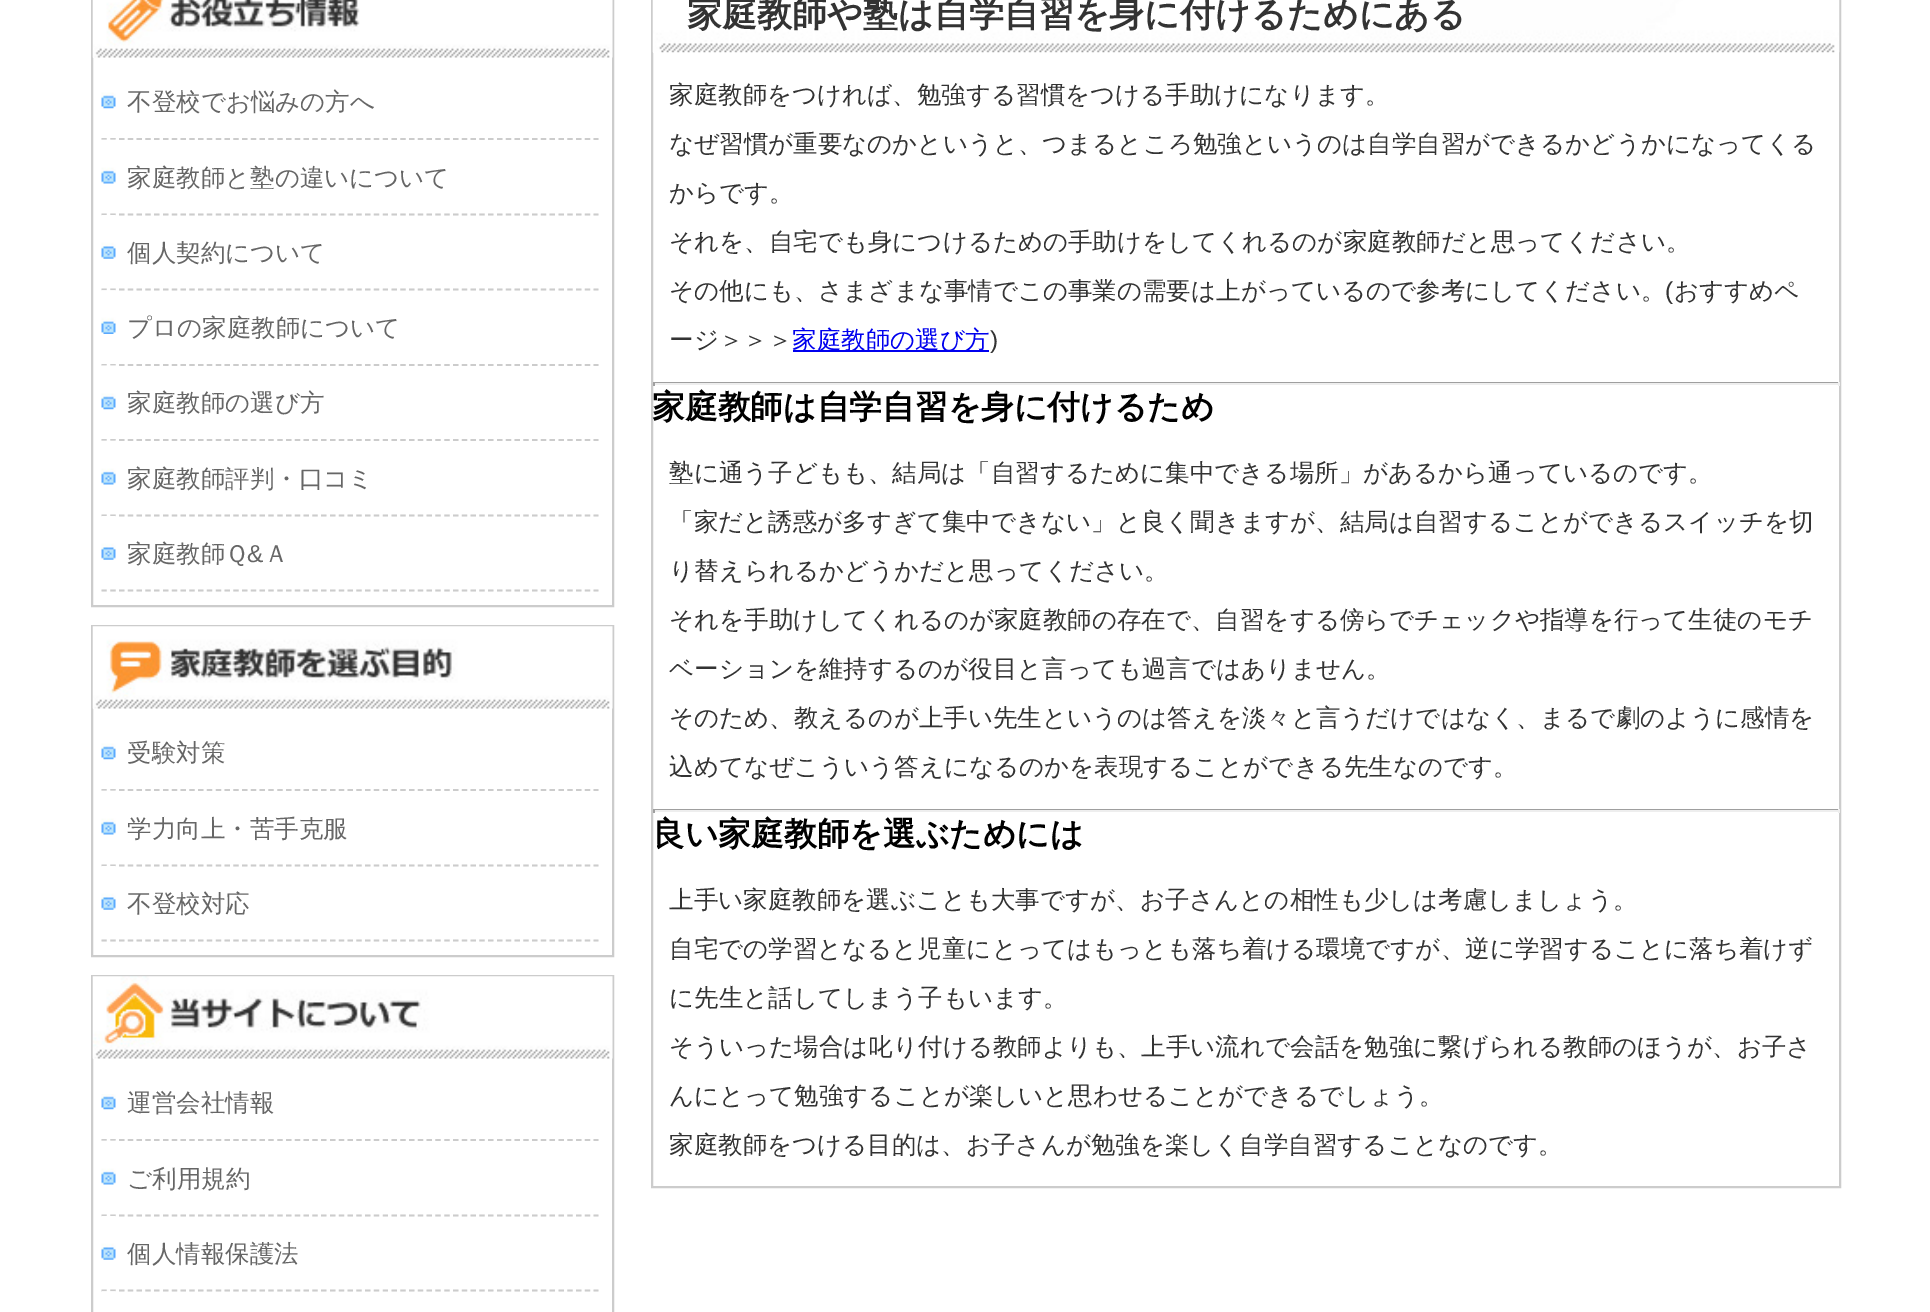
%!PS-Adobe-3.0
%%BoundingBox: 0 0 1930 1312
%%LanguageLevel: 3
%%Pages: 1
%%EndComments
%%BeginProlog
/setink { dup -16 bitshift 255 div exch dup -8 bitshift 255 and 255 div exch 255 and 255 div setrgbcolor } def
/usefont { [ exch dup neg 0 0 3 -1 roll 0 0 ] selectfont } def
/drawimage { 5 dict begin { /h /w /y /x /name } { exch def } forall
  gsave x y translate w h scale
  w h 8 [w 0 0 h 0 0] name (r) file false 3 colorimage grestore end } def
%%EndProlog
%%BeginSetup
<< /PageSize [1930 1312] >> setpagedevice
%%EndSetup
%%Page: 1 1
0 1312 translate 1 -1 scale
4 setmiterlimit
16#FFFFFF setink
0 0 1930 1312 rectfill
16#CCCCCC setink
2 setlinewidth
92 -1 521 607 rectstroke
(img1.raw) 92 0 521 58 drawimage
(img2.raw) 101 92 15 17 drawimage
1.8 setlinewidth
[5.25 3.54] 0 setdash
101.5 139 moveto 598.5 139 lineto stroke
/WenQuanYiZenHei-Medium 24.5 usefont
16#666666 setink
127 110 moveto (不登校でお悩みの方へ) show
(img3.raw) 101 139 15 45 drawimage
16#CCCCCC setink
101.5 214.5 moveto 598.5 214.5 lineto stroke
16#666666 setink
127 186 moveto (家庭教師と塾の違いについて) show
(img4.raw) 101 215 15 44 drawimage
16#CCCCCC setink
101.5 289.5 moveto 598.5 289.5 lineto stroke
16#666666 setink
127 261 moveto (個人契約について) show
(img5.raw) 101 290 15 44 drawimage
16#CCCCCC setink
101.5 365 moveto 598.5 365 lineto stroke
16#666666 setink
127 336 moveto (プロの家庭教師について) show
(img6.raw) 101 365 15 45 drawimage
16#CCCCCC setink
101.5 440 moveto 598.5 440 lineto stroke
16#666666 setink
127 411 moveto (家庭教師の選び方) show
(img3.raw) 101 440 15 45 drawimage
16#CCCCCC setink
101.5 515.5 moveto 598.5 515.5 lineto stroke
16#666666 setink
127 487 moveto (家庭教師評判・口コミ) show
(img4.raw) 101 516 15 44 drawimage
16#CCCCCC setink
101.5 590.5 moveto 598.5 590.5 lineto stroke
16#666666 setink
127 562 moveto (家庭教師Ｑ) show
/LiberationSans-Regular 24.5 usefont
247 562 moveto (&) show
/WenQuanYiZenHei-Medium 24.5 usefont
264 562 moveto (Ａ) show
16#CCCCCC setink
2 setlinewidth
[] 0 setdash
92 626 521 330 rectstroke
(img7.raw) 92 626 521 83 drawimage
(img2.raw) 101 743 15 17 drawimage
1.8 setlinewidth
[5.25 3.54] 0 setdash
101.5 790 moveto 598.5 790 lineto stroke
16#666666 setink
127 761 moveto (受験対策) show
(img3.raw) 101 790 15 45 drawimage
16#CCCCCC setink
101.5 865.5 moveto 598.5 865.5 lineto stroke
16#666666 setink
127 837 moveto (学力向上・苦手克服) show
(img4.raw) 101 866 15 44 drawimage
16#CCCCCC setink
101.5 940.5 moveto 598.5 940.5 lineto stroke
16#666666 setink
127 912 moveto (不登校対応) show
16#CCCCCC setink
2 setlinewidth
[] 0 setdash
92 976 521 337 rectstroke
(img8.raw) 92 976 521 83 drawimage
(img9.raw) 101 1094 15 16 drawimage
1.8 setlinewidth
[5.25 3.54] 0 setdash
101.5 1140 moveto 598.5 1140 lineto stroke
16#666666 setink
127 1111 moveto (運営会社情報) show
(img3.raw) 101 1140 15 45 drawimage
16#CCCCCC setink
101.5 1215.5 moveto 598.5 1215.5 lineto stroke
16#666666 setink
127 1187 moveto (ご利用規約) show
(img10.raw) 101 1216 15 44 drawimage
16#CCCCCC setink
101.5 1290.5 moveto 598.5 1290.5 lineto stroke
16#666666 setink
127 1262 moveto (個人情報保護法) show
(img11.raw) 102 1291 14 1 drawimage
16#CCCCCC setink
2 setlinewidth
[] 0 setdash
652 -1 1188 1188 rectstroke
(img12.raw) 652 0 1188 53 drawimage
/WenQuanYiZenHei-Bold 35 usefont
16#333333 setink
687 26 moveto (家庭教師や塾は自学自習を身に付けるためにある) show
/WenQuanYiZenHei-Medium 24.5 usefont
[
    [(家庭教師をつければ、勉強する習慣をつける手助けになります。) 669 103]
    [(なぜ習慣が重要なのかというと、つまるところ勉強というのは自学自習ができるかどうかになってくる) 669 152]
    [(からです。) 669 201]
    [(それを、自宅でも身につけるための手助けをしてくれるのが家庭教師だと思ってください。) 669 250]
    [(その他にも、さまざまな事情でこの事業の需要は上がっているので参考にしてください。) 669 299]
] { aload pop moveto show } forall
/LiberationSans-Regular 24.5 usefont
1665 299 moveto (\() show
/WenQuanYiZenHei-Medium 24.5 usefont
1674 299 moveto (おすすめペ) show
669 348 moveto (ージ＞＞＞) show
16#0000EE setink
793 350 196 2 rectfill
792 348 moveto (家庭教師の選び方) show
/LiberationSans-Regular 24.5 usefont
16#333333 setink
990 348 moveto (\)) show
[
    [653 382 1186 1 16#9F9F9F]
    [1838 382 2 4 16#EEEEEE]
    [653 383 1186 2 16#EEEEEE]
    [653 382 2 4 16#9F9F9F]
] { aload pop setink rectfill } forall
/WenQuanYiZenHei-Bold 32.75 usefont
16#000000 setink
652 418 moveto (家庭教師は自学自習を身に付けるため) show
/WenQuanYiZenHei-Medium 24.5 usefont
16#333333 setink
[
    [(塾に通う子どもも、結局は「自習するために集中できる場所」があるから通っているのです。) 669 481]
    [(「家だと誘惑が多すぎて集中できない」と良く聞きますが、結局は自習することができるスイッチを切) 669 530]
    [(り替えられるかどうかだと思ってください。) 669 579]
    [(それを手助けしてくれるのが家庭教師の存在で、自習をする傍らでチェックや指導を行って生徒のモチ) 669 628]
    [(ベーションを維持するのが役目と言っても過言ではありません。) 669 677]
    [(そのため、教えるのが上手い先生というのは答えを淡々と言うだけではなく、まるで劇のように感情を) 669 726]
    [(込めてなぜこういう答えになるのかを表現することができる先生なのです。) 669 775]
] { aload pop moveto show } forall
[
    [653 809 1186 1 16#9F9F9F]
    [1838 809 2 4 16#EEEEEE]
    [653 810 1186 2 16#EEEEEE]
    [653 809 2 4 16#9F9F9F]
] { aload pop setink rectfill } forall
/WenQuanYiZenHei-Bold 32.75 usefont
16#000000 setink
652 845 moveto (良い家庭教師を選ぶためには) show
/WenQuanYiZenHei-Medium 24.5 usefont
16#333333 setink
[
    [(上手い家庭教師を選ぶことも大事ですが、お子さんとの相性も少しは考慮しましょう。) 669 908]
    [(自宅での学習となると児童にとってはもっとも落ち着ける環境ですが、逆に学習することに落ち着けず) 669 957]
    [(に先生と話してしまう子もいます。) 669 1006]
    [(そういった場合は叱り付ける教師よりも、上手い流れで会話を勉強に繋げられる教師のほうが、お子さ) 669 1055]
    [(んにとって勉強することが楽しいと思わせることができるでしょう。) 669 1104]
    [(家庭教師をつける目的は、お子さんが勉強を楽しく自学自習することなのです。) 669 1153]
] { aload pop moveto show } forall
showpage
%%EOF
